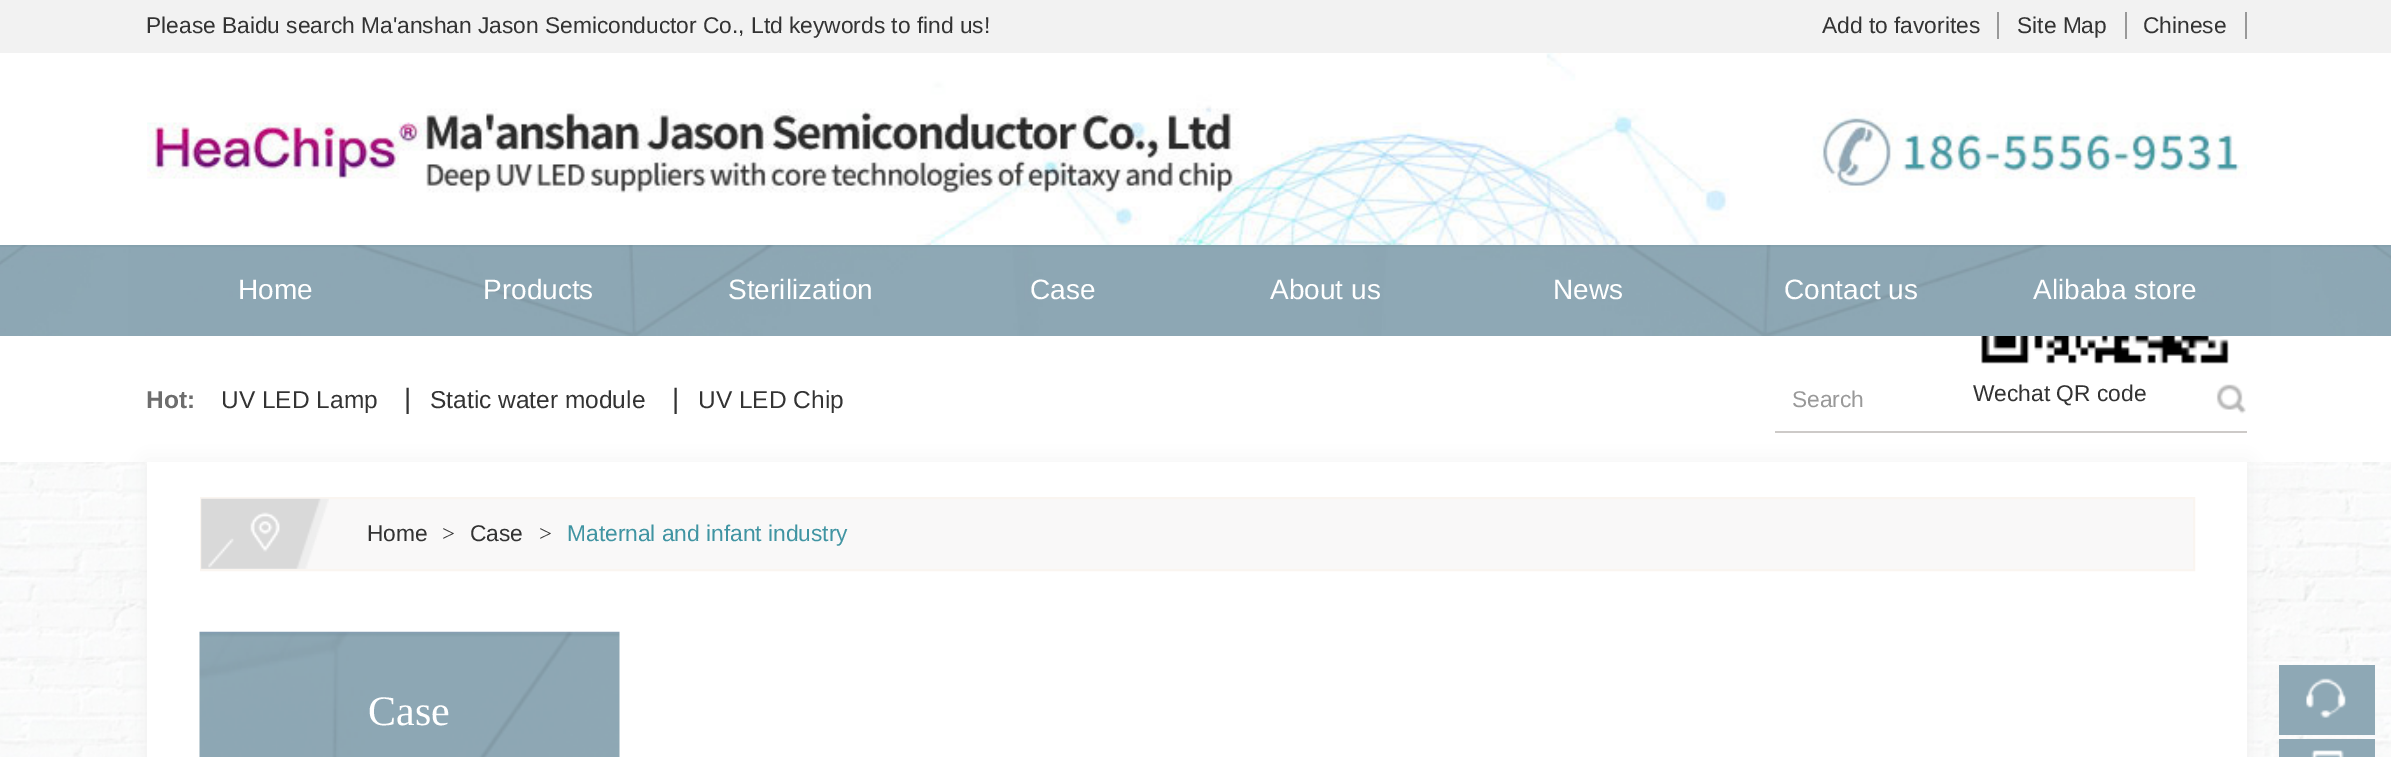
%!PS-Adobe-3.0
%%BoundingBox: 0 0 2391 757
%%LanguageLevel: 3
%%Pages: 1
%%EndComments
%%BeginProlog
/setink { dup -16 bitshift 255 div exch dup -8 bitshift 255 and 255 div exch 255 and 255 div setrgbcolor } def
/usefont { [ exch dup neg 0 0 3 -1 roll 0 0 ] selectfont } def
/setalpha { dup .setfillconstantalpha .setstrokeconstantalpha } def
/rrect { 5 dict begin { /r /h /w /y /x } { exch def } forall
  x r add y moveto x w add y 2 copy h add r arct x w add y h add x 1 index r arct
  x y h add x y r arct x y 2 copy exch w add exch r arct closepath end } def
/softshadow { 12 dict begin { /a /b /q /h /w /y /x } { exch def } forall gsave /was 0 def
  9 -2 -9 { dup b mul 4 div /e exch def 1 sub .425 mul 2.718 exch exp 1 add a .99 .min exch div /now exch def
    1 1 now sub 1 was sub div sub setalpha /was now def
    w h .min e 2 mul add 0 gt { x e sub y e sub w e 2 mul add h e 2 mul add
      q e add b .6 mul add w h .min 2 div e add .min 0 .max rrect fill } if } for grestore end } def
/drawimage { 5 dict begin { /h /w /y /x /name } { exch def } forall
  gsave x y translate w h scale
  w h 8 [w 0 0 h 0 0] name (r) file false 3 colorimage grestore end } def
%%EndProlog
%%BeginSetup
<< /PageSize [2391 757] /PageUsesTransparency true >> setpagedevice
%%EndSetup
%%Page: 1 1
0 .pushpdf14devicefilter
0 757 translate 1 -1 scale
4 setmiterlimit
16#FFFFFF setink
0 0 2391 757 rectfill
16#F2F2F2 setink
0 0 2391 53 rectfill
/LiberationSans-Regular 22.75 usefont
16#333333 setink
146 33 moveto (Please Baidu search Ma'anshan Jason Semiconductor Co., Ltd keywords to find us!) show
1822 33 moveto (Add to favorites) show
16#999999 setink
1997 12 2 27 rectfill
16#333333 setink
2017 33 moveto (Site Map) show
16#999999 setink
2125 12 2 27 rectfill
16#333333 setink
2143 33 moveto (Chinese) show
16#999999 setink
2245 12 2 27 rectfill
(img1.raw) 1981 336 248 28 drawimage
16#333333 setink
1973 401 moveto (Wechat QR code) show
(img2.raw) 147 53 2100 192 drawimage
(img3.raw) 0 245 2391 91 drawimage
/LiberationSans-Regular 28 usefont
16#FFFFFF setink
[
    [(Home) 238 299]
    [(Products) 483 299]
    [(Sterilization) 728 299]
    [(Case) 1030 299]
    [(About us) 1270 299]
    [(News) 1553 299]
    [(Contact us) 1784 299]
    [(Alibaba store) 2033 299]
] { aload pop moveto show } forall
/LiberationSans-Bold 24.5 usefont
16#6D6D6D setink
146 408 moveto (Hot:) show
/LiberationSans-Regular 24.5 usefont
16#333333 setink
221 408 moveto (UV LED Lamp) show
/LiberationSans-Regular 28 usefont
404 408 moveto (|) show
/LiberationSans-Regular 24.5 usefont
430 408 moveto (Static water module) show
/LiberationSans-Regular 28 usefont
672 408 moveto (|) show
/LiberationSans-Regular 24.5 usefont
698 408 moveto (UV LED Chip) show
16#CDCAC8 setink
1775 431 472 2 rectfill
/LiberationSans-Regular 22.75 usefont
16#999999 setink
1792 407 moveto (Search) show
(img4.raw) 2216 384 30 30 drawimage
(img5.raw) 0 462 2391 295 drawimage
16#EEEEEE setink
147 464 2100 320 0 9 1 softshadow
16#FFFFFF setink
147 462 2100 295 rectfill
16#F9F8F8 setink
201 498 moveto 2194 498 lineto 2194 570 lineto 201 570 lineto closepath gsave fill grestore
16#FAF5F0 setink
2 setlinewidth
stroke
(img6.raw) 201 498 128 71 drawimage
16#333333 setink
367 541 moveto (Home) show
/LiberationSerif-Regular 22.75 usefont
442 541 moveto (>) show
/LiberationSans-Regular 22.75 usefont
470 541 moveto (Case) show
/LiberationSerif-Regular 22.75 usefont
539 541 moveto (>) show
/LiberationSans-Regular 22.75 usefont
16#4094A2 setink
567 541 moveto (Maternal and infant industry) show
(img7.raw) 199 631 421 126 drawimage
/LiberationSerif-Regular 42 usefont
16#FFFFFF setink
368 725 moveto (Case) show
16#8EA8B5 setink
2279 665 96 70 rectfill
(img8.raw) 2306 678 40 40 drawimage
2279 739 96 18 rectfill
(img9.raw) 2311 750 33 7 drawimage
.poppdf14devicefilter showpage
%%EOF
